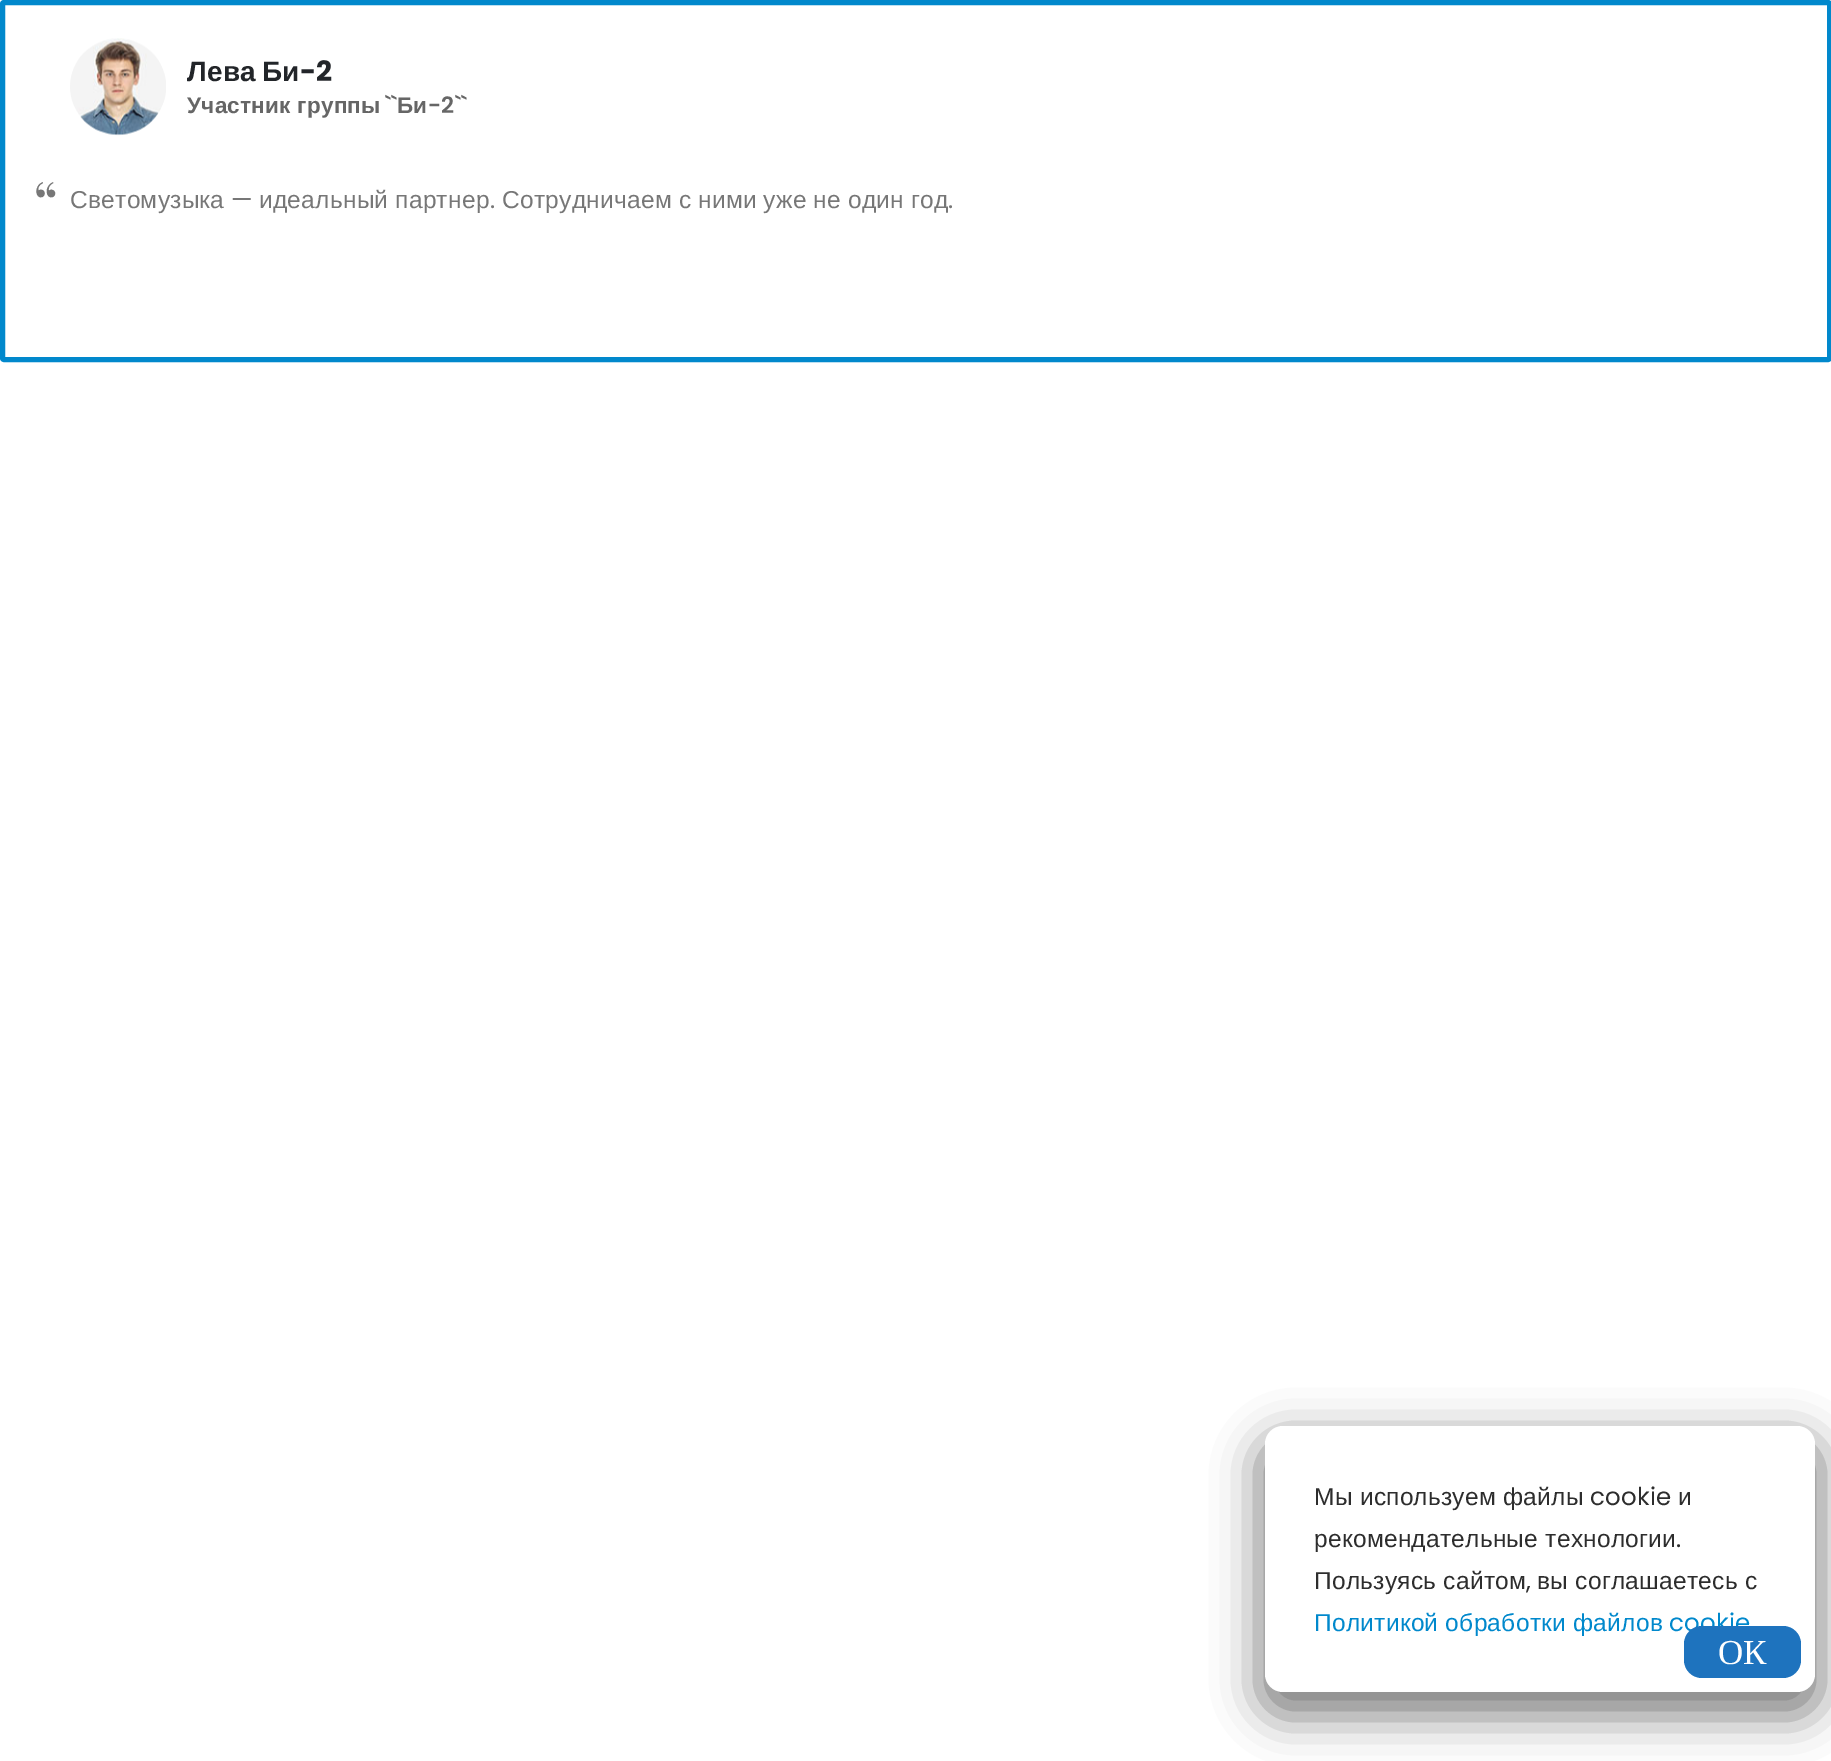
%!PS-Adobe-3.0
%%BoundingBox: 0 0 1831 1761
%%LanguageLevel: 3
%%Pages: 1
%%EndComments
%%BeginProlog
/setink { dup -16 bitshift 255 div exch dup -8 bitshift 255 and 255 div exch 255 and 255 div setrgbcolor } def
/usefont { [ exch dup neg 0 0 3 -1 roll 0 0 ] selectfont } def
/setalpha { dup .setfillconstantalpha .setstrokeconstantalpha } def
/rrect { 5 dict begin { /r /h /w /y /x } { exch def } forall
  x r add y moveto x w add y 2 copy h add r arct x w add y h add x 1 index r arct
  x y h add x y r arct x y 2 copy exch w add exch r arct closepath end } def
/softshadow { 12 dict begin { /a /b /q /h /w /y /x } { exch def } forall gsave /was 0 def
  9 -2 -9 { dup b mul 4 div /e exch def 1 sub .425 mul 2.718 exch exp 1 add a .99 .min exch div /now exch def
    1 1 now sub 1 was sub div sub setalpha /was now def
    w h .min e 2 mul add 0 gt { x e sub y e sub w e 2 mul add h e 2 mul add
      q e add b .6 mul add w h .min 2 div e add .min 0 .max rrect fill } if } for grestore end } def
/drawimage { 5 dict begin { /h /w /y /x /name } { exch def } forall
  gsave x y translate w h scale
  w h 8 [w 0 0 h 0 0] name (r) file false 3 colorimage grestore end } def
%%EndProlog
%%BeginSetup
<< /PageSize [1831 1761] /PageUsesTransparency true >> setpagedevice
%%EndSetup
%%Page: 1 1
0 .pushpdf14devicefilter
0 1761 translate 1 -1 scale
4 setmiterlimit
16#FFFFFF setink
0 0 1831 1761 rectfill
16#0188CC setink
5 setlinewidth
2.5 2.5 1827 357 1.5 rrect stroke
(img1.raw) 70 38 96 98 drawimage
/LiberationSans-Bold 28 usefont
16#222529 setink
187 81 moveto -2 0 32 0.25 0 (Лева Би) awidthshow
/Poppins-Bold 28 usefont
300 81 moveto 0.25 0 (-2) ashow
/LiberationSans-Bold 22.5 usefont
16#666666 setink
187 113 moveto 0.25 0 (Участник группы) ashow
/Poppins-SemiBold 22.5 usefont
385 113 moveto 0.25 0 (``) ashow
/LiberationSans-Bold 22.5 usefont
397 113 moveto 0.25 0 (Би) ashow
/Poppins-SemiBold 22.5 usefont
428 113 moveto 0.25 0 (-2``) ashow
/PlayfairDisplay-Regular 61 usefont
16#777777 setink
33 226 moveto (“) show
/LiberationSans-Regular 24.5 usefont
70 208 moveto 0.25 0 (Светомузыка) ashow
/Poppins-Regular 24.5 usefont
231 208 moveto 0.25 0 (—) ashow
/LiberationSans-Regular 24.5 usefont
259 208 moveto -0.25 0 32 0.25 0 (идеальный партнер) awidthshow
502 208 moveto -0.25 0 32 0.25 0 (Сотрудничаем с ними уже не один год) awidthshow
/Poppins-Regular 24.5 usefont
490 208 moveto 0.25 0 (.) ashow
948 208 moveto 0.25 0 (.) ashow
16#020202 setink
1258 1437 564 280 25 22 0.5 softshadow
16#FFFFFF setink
1265 1426 550 266 18 rrect fill
/LiberationSans-Regular 24.5 usefont
16#2D2D2D setink
1314 1505 moveto 0.25 0 (Мы используем файлы) ashow
/Poppins-Regular 24.5 usefont
1590 1505 moveto 0.25 0 (cookie) ashow
/LiberationSans-Regular 24.5 usefont
1678 1505 moveto 0.25 0 (и) ashow
1314 1547 moveto 0.25 0 (рекомендательные технологии) ashow
/Poppins-Regular 24.5 usefont
1676 1547 moveto 0.25 0 (.) ashow
/LiberationSans-Regular 24.5 usefont
1314 1589 moveto 0.25 0 (Пользуясь сайтом) ashow
/Poppins-Regular 24.5 usefont
1526 1589 moveto 0.25 0 (,) ashow
/LiberationSans-Regular 24.5 usefont
1537 1589 moveto 0.25 0 (вы соглашаетесь с) ashow
16#0088CC setink
1314 1631 moveto 0.25 0 (Политикой обработки файлов) ashow
/Poppins-Regular 24.5 usefont
1669 1631 moveto 0.25 0 (cookie) ashow
16#1E73BE setink
1684 1626 117 52 18 rrect fill
/LiberationSerif-Regular 35 usefont
16#FFFFFF setink
1718 1664 moveto (ОК) show
.poppdf14devicefilter showpage
%%EOF
